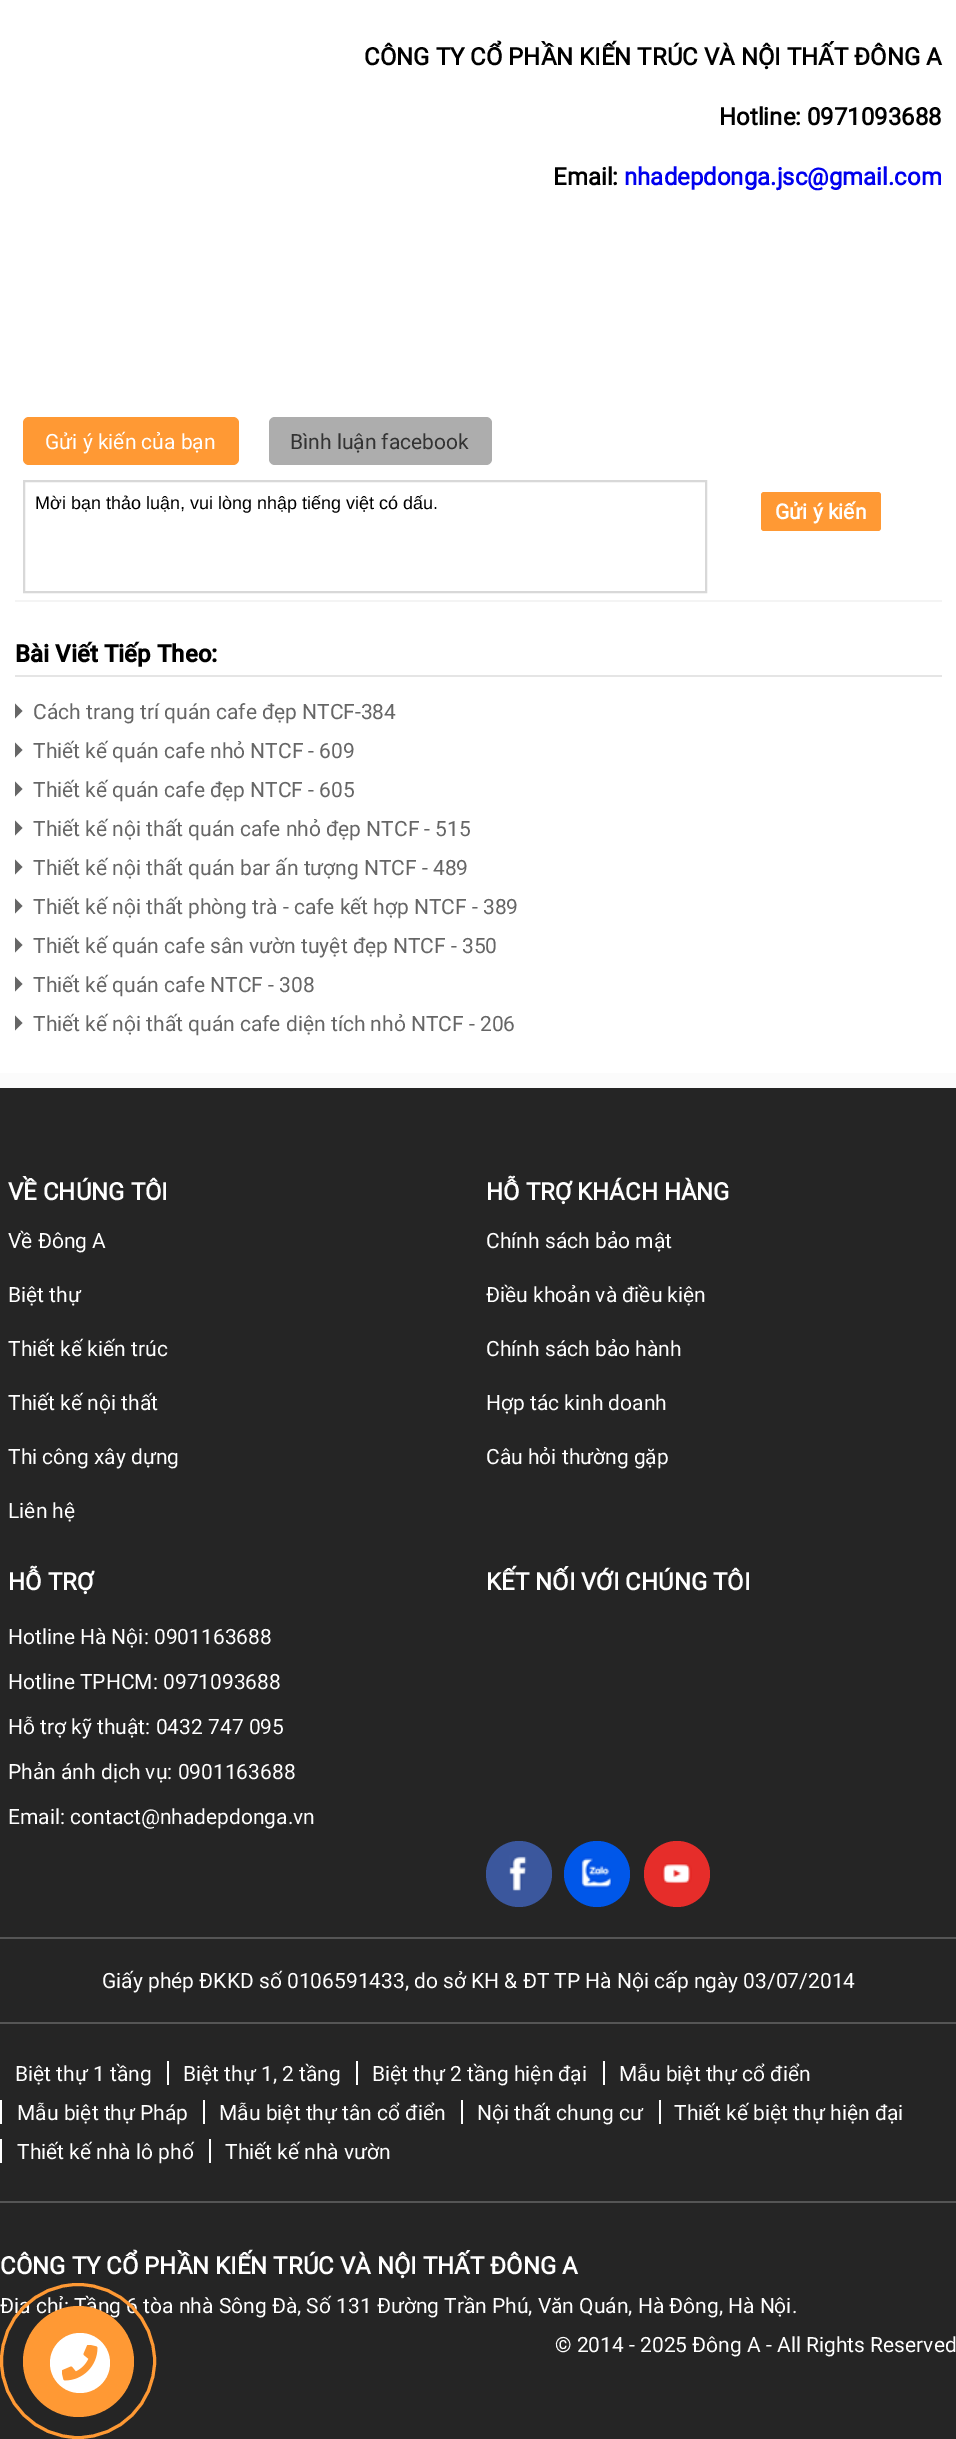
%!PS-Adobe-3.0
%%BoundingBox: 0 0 956 2439
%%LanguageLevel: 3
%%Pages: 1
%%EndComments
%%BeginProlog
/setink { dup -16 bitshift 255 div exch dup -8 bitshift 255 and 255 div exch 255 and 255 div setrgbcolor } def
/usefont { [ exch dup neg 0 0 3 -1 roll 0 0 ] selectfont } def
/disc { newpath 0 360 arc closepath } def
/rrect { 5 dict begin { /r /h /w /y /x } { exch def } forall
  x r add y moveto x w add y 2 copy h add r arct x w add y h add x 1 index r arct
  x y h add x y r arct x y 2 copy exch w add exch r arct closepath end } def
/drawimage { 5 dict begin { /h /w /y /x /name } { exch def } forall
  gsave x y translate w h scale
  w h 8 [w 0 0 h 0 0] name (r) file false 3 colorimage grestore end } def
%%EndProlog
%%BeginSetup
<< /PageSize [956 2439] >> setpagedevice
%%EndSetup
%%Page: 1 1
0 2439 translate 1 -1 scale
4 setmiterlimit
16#FBFBFB setink
0 0 956 2439 rectfill
16#FFFFFF setink
0 0 956 1073 rectfill
/Roboto-Bold 24 usefont
16#000000 setink
[
    [(CÔNG TY CỔ PHẦN KIẾN TRÚC VÀ NỘI THẤT ĐÔNG A) 364 65]
    [(Hotline: 0971093688) 719 125]
    [(Email:) 553 185]
] { aload pop moveto show } forall
16#0000EE setink
624 185 moveto (nhadepdonga.jsc@gmail.com) show
16#FF9934 setink
23 417 216 48 6 rrect fill
/Roboto-Regular 21 usefont
16#FFFFFF setink
45 449 moveto (Gửi ý kiến của bạn) show
16#ADADAD setink
269 417 223 48 6 rrect fill
16#333333 setink
290 449 moveto (Bình luận facebook) show
16#F4F4F4 setink
15 600 927 2 rectfill
16#D8D8D8 setink
2 setlinewidth
24 481 682 111 rectstroke
/LiberationSans-Regular 18 usefont
16#000000 setink
35 509 moveto (Mời bạn thảo luận, vui lòng nhập tiếng việt có dấu.) show
16#FF9934 setink
761 492 120 39 3 rrect fill
/Roboto-Bold 21 usefont
16#FFFFFF setink
775 519 moveto (Gửi ý kiến) show
16#E5E5E5 setink
15 675 927 2 rectfill
/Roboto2-Bold 24 usefont
16#000000 setink
15 662 moveto (Bài Viết Tiếp Theo:) show
16#666666 setink
15 718.5 moveto 15 703.5 lineto 22.5 711 lineto closepath fill
/Roboto-Regular 21 usefont
33 719 moveto (Cách trang trí quán cafe đẹp NTCF-384) show
15 757.5 moveto 15 742.5 lineto 22.5 750 lineto closepath fill
33 758 moveto (Thiết kế quán cafe nhỏ NTCF - 609) show
15 796.5 moveto 15 781.5 lineto 22.5 789 lineto closepath fill
33 797 moveto (Thiết kế quán cafe đẹp NTCF - 605) show
15 835.5 moveto 15 820.5 lineto 22.5 828 lineto closepath fill
33 836 moveto (Thiết kế nội thất quán cafe nhỏ đẹp NTCF - 515) show
15 874.5 moveto 15 859.5 lineto 22.5 867 lineto closepath fill
33 875 moveto (Thiết kế nội thất quán bar ấn tượng NTCF - 489) show
15 913.5 moveto 15 898.5 lineto 22.5 906 lineto closepath fill
33 914 moveto (Thiết kế nội thất phòng trà - cafe kết hợp NTCF - 389) show
15 952.5 moveto 15 937.5 lineto 22.5 945 lineto closepath fill
33 953 moveto (Thiết kế quán cafe sân vườn tuyệt đẹp NTCF - 350) show
15 991.5 moveto 15 976.5 lineto 22.5 984 lineto closepath fill
33 992 moveto (Thiết kế quán cafe NTCF - 308) show
15 1030.5 moveto 15 1015.5 lineto 22.5 1023 lineto closepath fill
33 1031 moveto (Thiết kế nội thất quán cafe diện tích nhỏ NTCF - 206) show
16#252525 setink
0 1088 956 1351 rectfill
/Roboto-Bold 24 usefont
16#FFFFFF setink
8 1200 moveto (VỀ CHÚNG TÔI) show
/Roboto-Regular 21 usefont
[
    [(Về Đông A) 8 1248]
    [(Biệt thự) 8 1302]
    [(Thiết kế kiến trúc) 8 1356]
    [(Thiết kế nội thất) 8 1410]
    [(Thi công xây dựng) 8 1464]
    [(Liên hệ) 8 1518]
] { aload pop moveto show } forall
/Roboto-Bold 24 usefont
486 1200 moveto (HỖ TRỢ KHÁCH HÀNG) show
/Roboto-Regular 21 usefont
[
    [(Chính sách bảo mật) 486 1248]
    [(Điều khoản và điều kiện) 486 1302]
    [(Chính sách bảo hành) 486 1356]
    [(Hợp tác kinh doanh) 486 1410]
    [(Câu hỏi thường gặp) 486 1464]
] { aload pop moveto show } forall
/Roboto-Bold 24 usefont
8 1590 moveto (HỖ TRỢ) show
/Roboto-Regular 21 usefont
[
    [(Hotline Hà Nội: 0901163688) 8 1644]
    [(Hotline TPHCM: 0971093688) 8 1689]
    [(Hỗ trợ kỹ thuật: 0432 747 095) 8 1734]
    [(Phản ánh dịch vụ: 0901163688) 8 1779]
    [(Email: contact@nhadepdonga.vn) 8 1824]
] { aload pop moveto show } forall
/Roboto-Bold 24 usefont
486 1590 moveto (KẾT NỐI VỚI CHÚNG TÔI) show
16#3B579D setink
519 1874 33 disc fill
(img1.raw) 509 1855 18 36 drawimage
16#0057E9 setink
597 1874 33 disc fill
(img2.raw) 580 1857 32 32 drawimage
16#E62D2A setink
677 1874 33 disc fill
(img3.raw) 661 1863 31 21 drawimage
16#555555 setink
0 1937 956 2 rectfill
0 2022 956 2 rectfill
/Roboto-Regular 21 usefont
16#FFFFFF setink
102 1988 moveto (Giấy phép ĐKKD số 0106591433, do sở KH & ĐT TP Hà Nội cấp ngày 03/07/2014) show
16#555555 setink
0 2201 956 2 rectfill
16#FFFFFF setink
15 2081 moveto (Biệt thự 1 tầng) show
167 2061 2 24 rectfill
183 2081 moveto (Biệt thự 1, 2 tầng) show
356 2061 2 24 rectfill
372 2081 moveto (Biệt thự 2 tầng hiện đại) show
603 2061 2 24 rectfill
619 2081 moveto (Mẫu biệt thự cổ điển) show
0 2100 2 24 rectfill
17 2120 moveto (Mẫu biệt thự Pháp) show
203 2100 2 24 rectfill
219 2120 moveto (Mẫu biệt thự tân cổ điển) show
461 2100 2 24 rectfill
477 2120 moveto (Nội thất chung cư) show
659 2100 2 24 rectfill
674 2120 moveto (Thiết kế biệt thự hiện đại) show
0 2139 2 24 rectfill
17 2159 moveto (Thiết kế nhà lô phố) show
209 2139 2 24 rectfill
225 2159 moveto (Thiết kế nhà vườn) show
/Roboto-Bold 24 usefont
0 2274 moveto (CÔNG TY CỔ PHẦN KIẾN TRÚC VÀ NỘI THẤT ĐÔNG A) show
/Roboto-Regular 21 usefont
0 2313 moveto (Địa chỉ: Tầng 6 tòa nhà Sông Đà, Số 131 Đường Trần Phú, Văn Quán, Hà Đông, Hà Nội.) show
555 2352 moveto (© 2014 - 2025 Đông A - All Rights Reserved) show
16#FF9934 setink
3 setlinewidth
78 2361 76.5 disc stroke
78.5 2361.5 55.5 disc fill
16#FFFFFF setink
80 2363 30 disc fill
(img4.raw) 62 2345 36 36 drawimage
showpage
%%EOF
